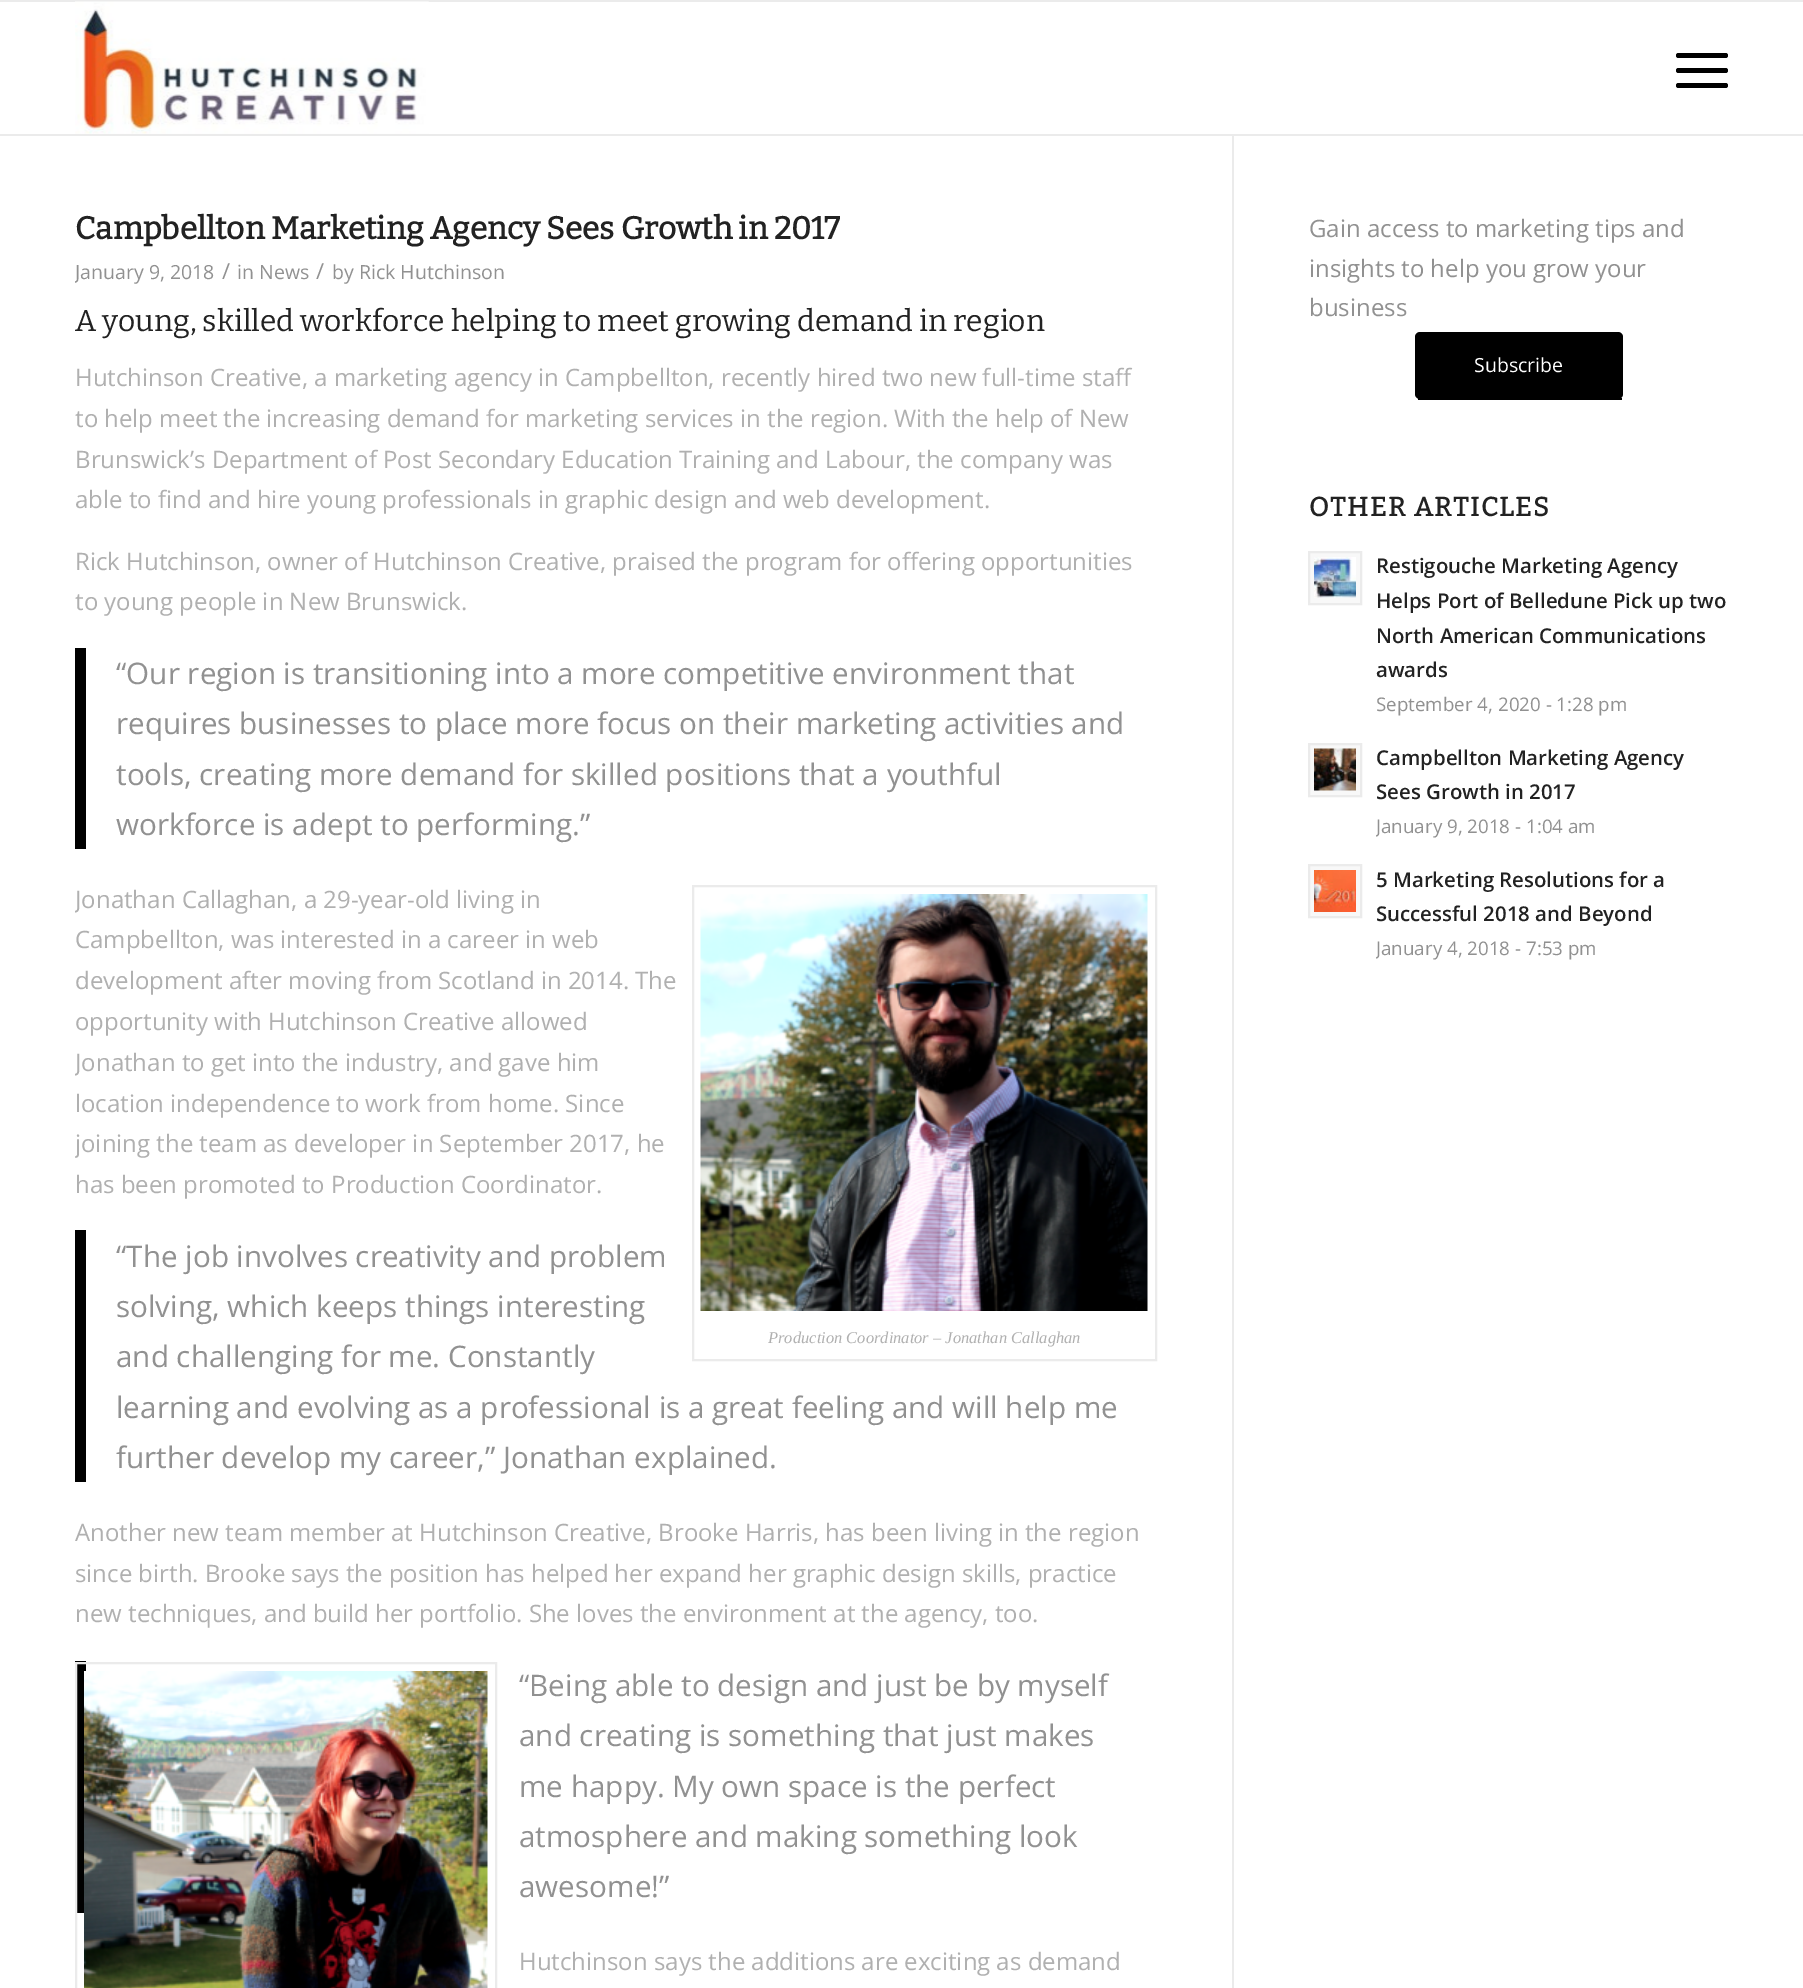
%!PS-Adobe-3.0
%%BoundingBox: 0 0 1803 1988
%%LanguageLevel: 3
%%Pages: 1
%%EndComments
%%BeginProlog
/setink { dup -16 bitshift 255 div exch dup -8 bitshift 255 and 255 div exch 255 and 255 div setrgbcolor } def
/usefont { [ exch dup neg 0 0 3 -1 roll 0 0 ] selectfont } def
/rrect { 5 dict begin { /r /h /w /y /x } { exch def } forall
  x r add y moveto x w add y 2 copy h add r arct x w add y h add x 1 index r arct
  x y h add x y r arct x y 2 copy exch w add exch r arct closepath end } def
/drawimage { 5 dict begin { /h /w /y /x /name } { exch def } forall
  gsave x y translate w h scale
  w h 8 [w 0 0 h 0 0] name (r) file false 3 colorimage grestore end } def
%%EndProlog
%%BeginSetup
<< /PageSize [1803 1988] >> setpagedevice
%%EndSetup
%%Page: 1 1
0 1988 translate 1 -1 scale
4 setmiterlimit
16#FFFFFF setink
0 0 1803 1988 rectfill
[
    [0 0 1803 2 16#EBEBEB]
    [1232 134 2 1854 16#EBEBEB]
    [0 134 1803 2 16#EBEBEB]
] { aload pop setink rectfill } forall
(img1.raw) 75 1 354 133 drawimage
16#000000 setink
1676 68 52 5 2.5 rrect fill
1676 53 52 5 2.5 rrect fill
1676 83 52 5 2.5 rrect fill
/Bitter-Bold 31.5 usefont
16#222222 setink
75 239 moveto (Campbellton Marketing Agency Sees Growth in 2017) show
gsave
75 209 1157 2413 rectclip
/OpenSans-Regular 19.5 usefont
16#919191 setink
75 279 moveto (January 9, 2018) show
grestore
/OpenSans-Regular 22 usefont
16#919191 setink
222 279 moveto (/) show
/OpenSans-Regular 19.5 usefont
237 279 moveto (in News) show
/OpenSans-Regular 22 usefont
316 279 moveto (/) show
/OpenSans-Regular 19.5 usefont
332 279 moveto (by Rick Hutchinson) show
/Bitter-Thin 30 usefont
16#222222 setink
75 331 moveto (A young, skilled workforce helping to meet growing demand in region) show
/OpenSans-Regular 24 usefont
16#B0B0B0 setink
[
    [(Hutchinson Creative, a marketing agency in Campbellton, recently hired two new full-time staff) 75 386]
    [(to help meet the increasing demand for marketing services in the region. With the help of New) 75 427]
    [(Brunswick’s Department of Post Secondary Education Training and Labour, the company was) 75 468]
    [(able to find and hire young professionals in graphic design and web development.) 75 508]
    [(Rick Hutchinson, owner of Hutchinson Creative, praised the program for offering opportunities) 75 570]
    [(to young people in New Brunswick.) 75 610]
] { aload pop moveto show } forall
16#000000 setink
75 648 11 201 rectfill
/OpenSans-Regular 29.65 usefont
16#919191 setink
[
    [(“Our region is transitioning into a more competitive environment that) 116 684]
    [(requires businesses to place more focus on their marketing activities and) 116 734]
    [(tools, creating more demand for skilled positions that a youthful) 116 785]
    [(workforce is adept to performing.”) 116 835]
] { aload pop moveto show } forall
gsave
75 209 1157 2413 rectclip
/OpenSans-Regular 24 usefont
16#B0B0B0 setink
75 908 moveto (Jonathan Callaghan, a 29-year-old living in) show
grestore
/OpenSans-Regular 24 usefont
16#B0B0B0 setink
[
    [(Campbellton, was interested in a career in web) 75 948]
    [(development after moving from Scotland in 2014. The) 75 989]
    [(opportunity with Hutchinson Creative allowed) 75 1030]
] { aload pop moveto show } forall
gsave
75 209 1157 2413 rectclip
75 1071 moveto (Jonathan to get into the industry, and gave him) show
grestore
75 1112 moveto (location independence to work from home. Since) show
gsave
75 209 1157 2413 rectclip
75 1152 moveto (joining the team as developer in September 2017, he) show
grestore
75 1193 moveto (has been promoted to Production Coordinator.) show
16#000000 setink
75 1230 11 252 rectfill
/OpenSans-Regular 29.65 usefont
16#919191 setink
[
    [(“The job involves creativity and problem) 116 1267]
    [(solving, which keeps things interesting) 116 1317]
    [(and challenging for me. Constantly) 116 1367]
    [(learning and evolving as a professional is a great feeling and will help me) 116 1418]
    [(further develop my career,” Jonathan explained.) 116 1468]
] { aload pop moveto show } forall
16#EBEBEB setink
2 setlinewidth
693 886 463 474 rectstroke
(img2.raw) 700 894 448 417 drawimage
/LiberationSerif-Italic 16.5 usefont
16#B0B0B0 setink
768 1343 moveto (Production Coordinator – Jonathan Callaghan) show
/OpenSans-Regular 24 usefont
[
    [(Another new team member at Hutchinson Creative, Brooke Harris, has been living in the region) 75 1541]
    [(since birth. Brooke says the position has helped her expand her graphic design skills, practice) 75 1582]
    [(new techniques, and build her portfolio. She loves the environment at the agency, too.) 75 1622]
] { aload pop moveto show } forall
16#000000 setink
75 1661 11 252 rectfill
16#EBEBEB setink
76 1663 420 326 rectstroke
(img3.raw) 84 1671 404 317 drawimage
/OpenSans-Regular 29.65 usefont
16#919191 setink
[
    [(“Being able to design and just be by myself) 519 1696]
    [(and creating is something that just makes) 519 1746]
    [(me happy. My own space is the perfect) 519 1797]
    [(atmosphere and making something look) 519 1847]
    [(awesome!”) 519 1897]
] { aload pop moveto show } forall
/OpenSans-Regular 24 usefont
16#B0B0B0 setink
519 1970 moveto (Hutchinson says the additions are exciting as demand) show
16#919191 setink
[
    [(Gain access to marketing tips and) 1309 237]
    [(insights to help you grow your) 1309 277]
    [(business) 1309 316]
] { aload pop moveto show } forall
16#000000 setink
1415 332 208 67 5 rrect fill
1418 398 204 2 rectfill
/OpenSans-Regular 19.5 usefont
16#FFFFFF setink
1474 372 moveto (Subscribe) show
/Bitter-Bold 26.5 usefont
16#222222 setink
1309 516 moveto 1.5 0 (OTHER ARTICLES) ashow
16#F8F8F8 setink
1309 552 moveto 1361 552 lineto 1361 604 lineto 1309 604 lineto closepath gsave fill grestore
16#EBEBEB setink
stroke
(img4.raw) 1314 557 42 41 drawimage
/OpenSans-SemiBold 20.4 usefont
16#222222 setink
[
    [(Restigouche Marketing Agency) 1376 573]
    [(Helps Port of Belledune Pick up two) 1376 608]
    [(North American Communications) 1376 643]
    [(awards) 1376 677]
] { aload pop moveto show } forall
/OpenSans-Regular 18.75 usefont
16#919191 setink
1376 711 moveto (September 4, 2020 - 1:28 pm) show
16#F8F8F8 setink
1309 744 moveto 1361 744 lineto 1361 796 lineto 1309 796 lineto closepath gsave fill grestore
16#EBEBEB setink
stroke
(img5.raw) 1314 748 42 43 drawimage
/OpenSans-SemiBold 20.4 usefont
16#222222 setink
1376 765 moveto (Campbellton Marketing Agency) show
1376 799 moveto (Sees Growth in 2017) show
gsave
1376 740 352 103 rectclip
/OpenSans-Regular 18.75 usefont
16#919191 setink
1376 833 moveto (January 9, 2018 - 1:04 am) show
grestore
16#F8F8F8 setink
1309 865 moveto 1361 865 lineto 1361 917 lineto 1309 917 lineto closepath gsave fill grestore
16#EBEBEB setink
stroke
(img6.raw) 1314 870 42 42 drawimage
16#222222 setink
1376 887 moveto (5 Marketing Resolutions for a) show
1376 921 moveto (Successful 2018 and Beyond) show
gsave
1376 861 352 105 rectclip
/OpenSans-Regular 18.75 usefont
16#919191 setink
1376 955 moveto (January 4, 2018 - 7:53 pm) show
grestore
showpage
%%EOF
